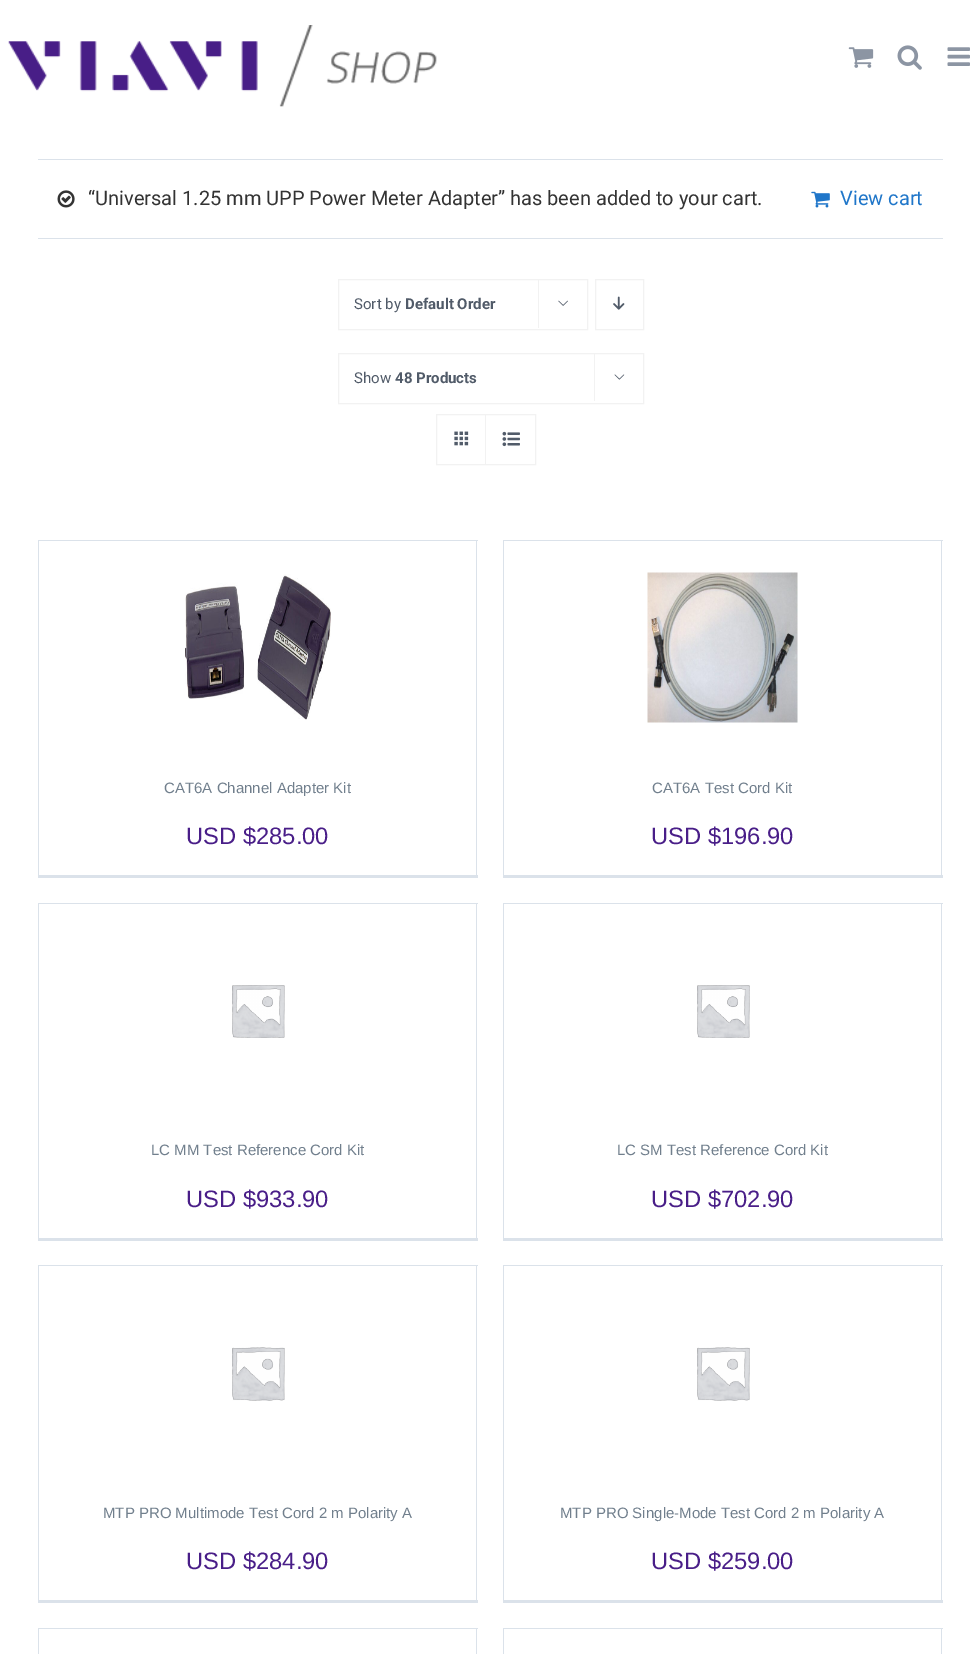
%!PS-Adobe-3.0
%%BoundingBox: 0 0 979 1654
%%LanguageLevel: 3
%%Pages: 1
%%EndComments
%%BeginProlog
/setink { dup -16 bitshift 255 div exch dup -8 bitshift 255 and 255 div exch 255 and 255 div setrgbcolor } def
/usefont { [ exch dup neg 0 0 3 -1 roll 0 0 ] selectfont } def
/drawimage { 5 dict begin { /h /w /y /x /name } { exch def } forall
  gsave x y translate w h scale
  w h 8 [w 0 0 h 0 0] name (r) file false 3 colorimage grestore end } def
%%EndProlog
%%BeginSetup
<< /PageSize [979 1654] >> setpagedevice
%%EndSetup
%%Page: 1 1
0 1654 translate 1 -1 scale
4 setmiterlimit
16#FFFFFF setink
0 0 979 1654 rectfill
(img1.raw) 8 25 429 82 drawimage
(img2.raw) 848 47 26 21 drawimage
(img3.raw) 897 45 25 25 drawimage
(img4.raw) 947 47 23 19 drawimage
16#DBE2EA setink
38 159 905 1 rectfill
38 238 905 1 rectfill
(img5.raw) 57 190 18 18 drawimage
/Roboto-Regular 20 usefont
16#333333 setink
88 205 moveto (“Universal 1.25 mm UPP Power Meter Adapter” has been added to your cart.) show
(img6.raw) 811 191 19 17 drawimage
16#1F76C9 setink
840 205 moveto (View cart) show
16#F2F2F2 setink
338.5 279.5 249 50 rectstroke
/Roboto-Regular 15 usefont
16#515B69 setink
354 309 moveto (Sort by) show
/Roboto-Bold 15 usefont
405 309 moveto (Default Order) show
16#F2F2F2 setink
538 279 1 49 rectfill
(img7.raw) 558 300 10 6 drawimage
595.5 279.5 48 50 rectstroke
(img8.raw) 613 296 12 14 drawimage
338.5 353.5 305 50 rectstroke
/Roboto-Regular 15 usefont
16#515B69 setink
354 383 moveto (Show) show
/Roboto-Bold 15 usefont
395 383 moveto (48 Products) show
16#F2F2F2 setink
594 353 1 48 rectfill
(img9.raw) 614 374 11 6 drawimage
436.5 414.5 99 50 rectstroke
485 415 1 49 rectfill
(img10.raw) 454 431 15 15 drawimage
(img11.raw) 502 431 18 16 drawimage
[
    [38 540 440 1 16#DBE2EA]
    [476 540 1 338 16#DBE2EA]
    [38 875 440 3 16#DBE2EA]
    [38 540 1 338 16#DBE2EA]
] { aload pop setink rectfill } forall
(img12.raw) 185 574 146 146 drawimage
/LiberationSans-Regular 15 usefont
16#717F8D setink
164 793 moveto (CAT6A Channel Adapter Kit) show
/LiberationSans-Regular 23.75 usefont
16#491E88 setink
186 844 moveto (USD $285.00) show
[
    [503 540 440 1 16#DBE2EA]
    [941 540 1 338 16#DBE2EA]
    [503 875 440 3 16#DBE2EA]
    [503 540 1 338 16#DBE2EA]
] { aload pop setink rectfill } forall
(img13.raw) 647 572 151 151 drawimage
/LiberationSans-Regular 15 usefont
16#717F8D setink
652 793 moveto (CAT6A Test Cord Kit) show
/LiberationSans-Regular 23.75 usefont
16#491E88 setink
651 844 moveto (USD $196.90) show
[
    [38 903 440 1 16#DBE2EA]
    [476 903 1 337 16#DBE2EA]
    [38 1238 440 3 16#DBE2EA]
    [38 903 1 337 16#DBE2EA]
] { aload pop setink rectfill } forall
(img14.raw) 232 985 53 53 drawimage
/LiberationSans-Regular 15 usefont
16#717F8D setink
151 1155 moveto (LC MM Test Reference Cord Kit) show
/LiberationSans-Regular 23.75 usefont
16#491E88 setink
186 1207 moveto (USD $933.90) show
[
    [503 903 440 1 16#DBE2EA]
    [941 903 1 337 16#DBE2EA]
    [503 1238 440 3 16#DBE2EA]
    [503 903 1 337 16#DBE2EA]
] { aload pop setink rectfill } forall
(img15.raw) 697 985 53 53 drawimage
/LiberationSans-Regular 15 usefont
16#717F8D setink
617 1155 moveto (LC SM Test Reference Cord Kit) show
/LiberationSans-Regular 23.75 usefont
16#491E88 setink
651 1207 moveto (USD $702.90) show
[
    [38 1265 440 1 16#DBE2EA]
    [476 1265 1 338 16#DBE2EA]
    [38 1600 440 3 16#DBE2EA]
    [38 1265 1 338 16#DBE2EA]
] { aload pop setink rectfill } forall
(img16.raw) 232 1347 53 54 drawimage
/LiberationSans-Regular 15 usefont
16#717F8D setink
103 1518 moveto (MTP PRO Multimode Test Cord 2 m Polarity A) show
/LiberationSans-Regular 23.75 usefont
16#491E88 setink
186 1569 moveto (USD $284.90) show
[
    [503 1265 440 1 16#DBE2EA]
    [941 1265 1 338 16#DBE2EA]
    [503 1600 440 3 16#DBE2EA]
    [503 1265 1 338 16#DBE2EA]
] { aload pop setink rectfill } forall
(img17.raw) 697 1347 53 54 drawimage
/LiberationSans-Regular 15 usefont
16#717F8D setink
560 1518 moveto (MTP PRO Single-Mode Test Cord 2 m Polarity A) show
/LiberationSans-Regular 23.75 usefont
16#491E88 setink
651 1569 moveto (USD $259.00) show
[
    [38 1628 440 1 16#DBE2EA]
    [476 1628 1 26 16#DBE2EA]
    [38 1628 1 26 16#DBE2EA]
    [503 1628 440 1 16#DBE2EA]
    [941 1628 1 26 16#DBE2EA]
    [503 1628 1 26 16#DBE2EA]
] { aload pop setink rectfill } forall
showpage
%%EOF
